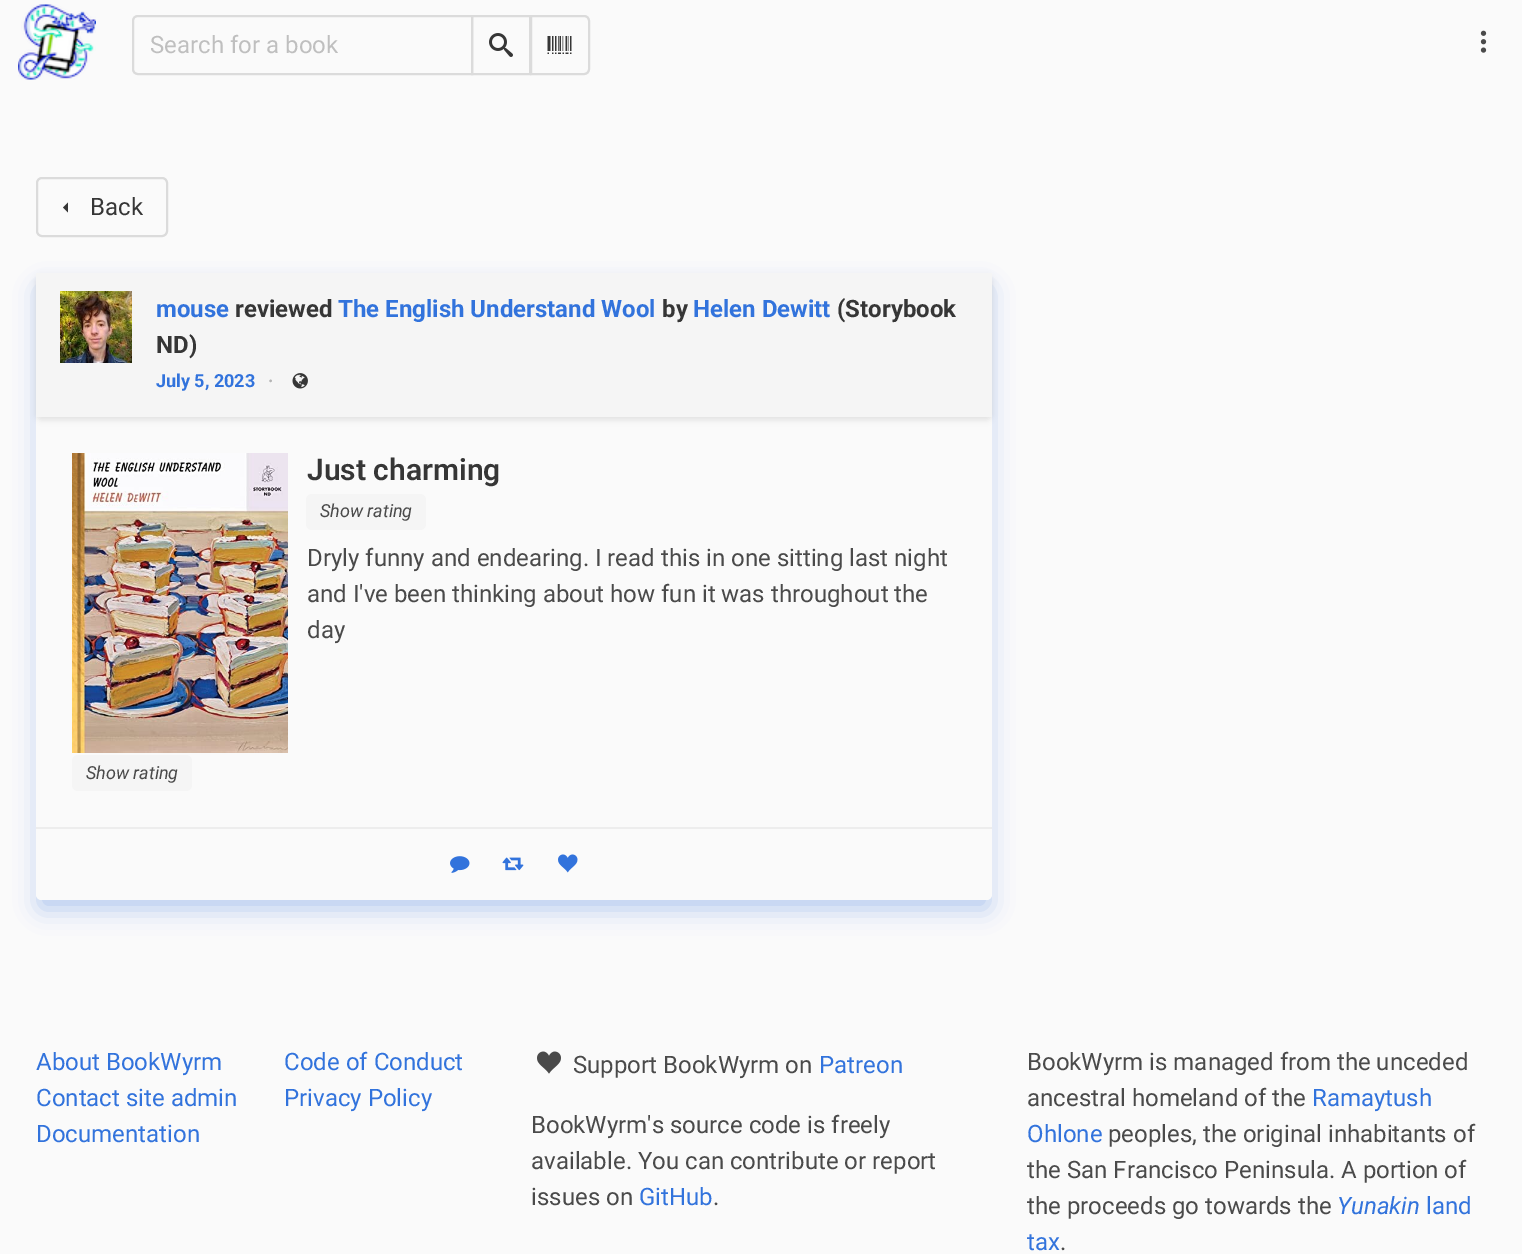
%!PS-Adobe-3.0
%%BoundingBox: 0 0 1522 1254
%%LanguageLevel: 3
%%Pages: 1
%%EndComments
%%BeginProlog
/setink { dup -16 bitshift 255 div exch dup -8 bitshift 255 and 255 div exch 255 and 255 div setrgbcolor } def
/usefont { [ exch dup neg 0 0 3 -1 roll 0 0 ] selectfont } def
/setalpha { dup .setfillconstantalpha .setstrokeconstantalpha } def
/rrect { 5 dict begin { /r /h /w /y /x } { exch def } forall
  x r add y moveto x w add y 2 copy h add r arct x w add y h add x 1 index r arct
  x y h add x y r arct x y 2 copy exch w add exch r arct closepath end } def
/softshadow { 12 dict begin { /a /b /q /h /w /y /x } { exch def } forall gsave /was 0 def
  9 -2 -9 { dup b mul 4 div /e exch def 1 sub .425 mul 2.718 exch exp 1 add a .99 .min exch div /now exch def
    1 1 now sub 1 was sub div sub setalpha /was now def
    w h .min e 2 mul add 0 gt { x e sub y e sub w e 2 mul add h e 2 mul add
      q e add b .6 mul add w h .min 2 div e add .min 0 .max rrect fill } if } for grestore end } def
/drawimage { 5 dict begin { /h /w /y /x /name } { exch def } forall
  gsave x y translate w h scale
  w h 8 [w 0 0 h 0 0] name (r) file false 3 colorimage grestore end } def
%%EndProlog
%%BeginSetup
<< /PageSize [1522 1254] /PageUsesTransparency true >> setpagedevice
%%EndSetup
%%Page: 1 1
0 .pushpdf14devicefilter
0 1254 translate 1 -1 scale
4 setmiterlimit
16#FAFAFA setink
0 0 1522 1254 rectfill
(img1.raw) 18 4 78 76 drawimage
16#DBDBDB setink
2 setlinewidth
138 16 moveto 472 16 lineto 472 74 lineto 138 74 lineto 135 74 133 72 133 69 curveto 133 21 lineto 133 18 135 16 138 16 curveto closepath stroke
/Roboto-Regular 24 usefont
16#BFBFBF setink
150 53 moveto (Search for a book) show
16#DBDBDB setink
472 16 58 58 rectstroke
(img2.raw) 489 33 24 24 drawimage
16#FAFAFA setink
531 16 moveto 584 16 lineto 587 16 589 18 589 21 curveto 589 69 lineto 589 72 587 74 584 74 curveto 531 74 lineto closepath gsave fill grestore
16#DBDBDB setink
stroke
(img3.raw) 547 36 25 18 drawimage
(img4.raw) 1480 30 7 23 drawimage
37 178 130 58 5 rrect stroke
16#363636 setink
68 202.5 moveto 68 212.5 lineto 63 207.5 lineto closepath fill
90 215 moveto (Back) show
16#3273DC setink
39 288 950 621 3 12 0.35 softshadow
16#FAFAFA setink
36 273 956 627 6 rrect fill
16#0A0A0A setink
36 276 956 144 6 3 0.1 softshadow
16#F5F5F5 setink
36 273 956 144 rectfill
(img5.raw) 60 291 72 72 drawimage
/Roboto-Bold 24 usefont
16#3273DC setink
156 317 moveto (mouse) show
16#363636 setink
235 317 moveto (reviewed) show
16#3273DC setink
338 317 moveto (The English Understand Wool) show
16#363636 setink
662 317 moveto (by) show
16#3273DC setink
693 317 moveto (Helen Dewitt) show
16#363636 setink
837 317 moveto (\(Storybook) show
156 353 moveto (ND\)) show
/Roboto-Bold 18 usefont
16#3273DC setink
156 387 moveto (July 5, 2023) show
16#B5B5B5 setink
268 387 moveto (·) show
(img6.raw) 292 373 16 16 drawimage
/Roboto-SemiBold 30 usefont
16#363636 setink
307 480 moveto (Just charming) show
16#F5F5F5 setink
306 494 120 36 6 rrect fill
/Roboto-Italic 18 usefont
16#4A4A4A setink
320 517 moveto (Show rating) show
/Roboto-Regular 24 usefont
[
    [(Dryly funny and endearing. I read this in one sitting last night) 307 566]
    [(and I've been thinking about how fun it was throughout the) 307 602]
    [(day) 307 638]
] { aload pop moveto show } forall
(img7.raw) 72 453 216 300 drawimage
16#F5F5F5 setink
72 755 120 36 6 rrect fill
/Roboto-Italic 18 usefont
16#4A4A4A setink
86 779 moveto (Show rating) show
16#FAFAFA setink
36 827 moveto 992 827 lineto 992 894 lineto 992 897.5 989.5 900 986 900 curveto 42 900 lineto 38.5 900 36 897.5 36 894 curveto closepath fill
16#EDEDED setink
36 827 956 2 rectfill
(img8.raw) 450 856 20 17 drawimage
(img9.raw) 502 857 22 14 drawimage
(img10.raw) 558 854 20 19 drawimage
/Roboto-Regular 24 usefont
16#3273DC setink
[
    [(About BookWyrm) 36 1070]
    [(Contact site admin) 36 1106]
    [(Documentation) 36 1142]
    [(Code of Conduct) 284 1070]
    [(Privacy Policy) 284 1106]
] { aload pop moveto show } forall
(img11.raw) 537 1051 24 23 drawimage
16#4A4A4A setink
573 1073 moveto (Support BookWyrm on) show
16#3273DC setink
819 1073 moveto (Patreon) show
16#4A4A4A setink
[
    [(BookWyrm's source code is freely) 531 1133]
    [(available. You can contribute or report) 531 1169]
    [(issues on) 531 1205]
] { aload pop moveto show } forall
16#3273DC setink
639 1205 moveto (GitHub) show
16#4A4A4A setink
[
    [(.) 713 1205]
    [(BookWyrm is managed from the unceded) 1027 1070]
    [(ancestral homeland of the) 1027 1106]
] { aload pop moveto show } forall
16#3273DC setink
1312 1106 moveto (Ramaytush) show
1027 1142 moveto (Ohlone) show
16#4A4A4A setink
[
    [(peoples, the original inhabitants of) 1108 1142]
    [(the San Francisco Peninsula. A portion of) 1027 1178]
    [(the proceeds go towards the) 1027 1214]
] { aload pop moveto show } forall
/Roboto-Italic 24 usefont
16#3273DC setink
1337 1214 moveto (Yunakin) show
/Roboto-Regular 24 usefont
1426 1214 moveto (land) show
1027 1250 moveto (tax) show
16#4A4A4A setink
1060 1250 moveto (.) show
.poppdf14devicefilter showpage
%%EOF
